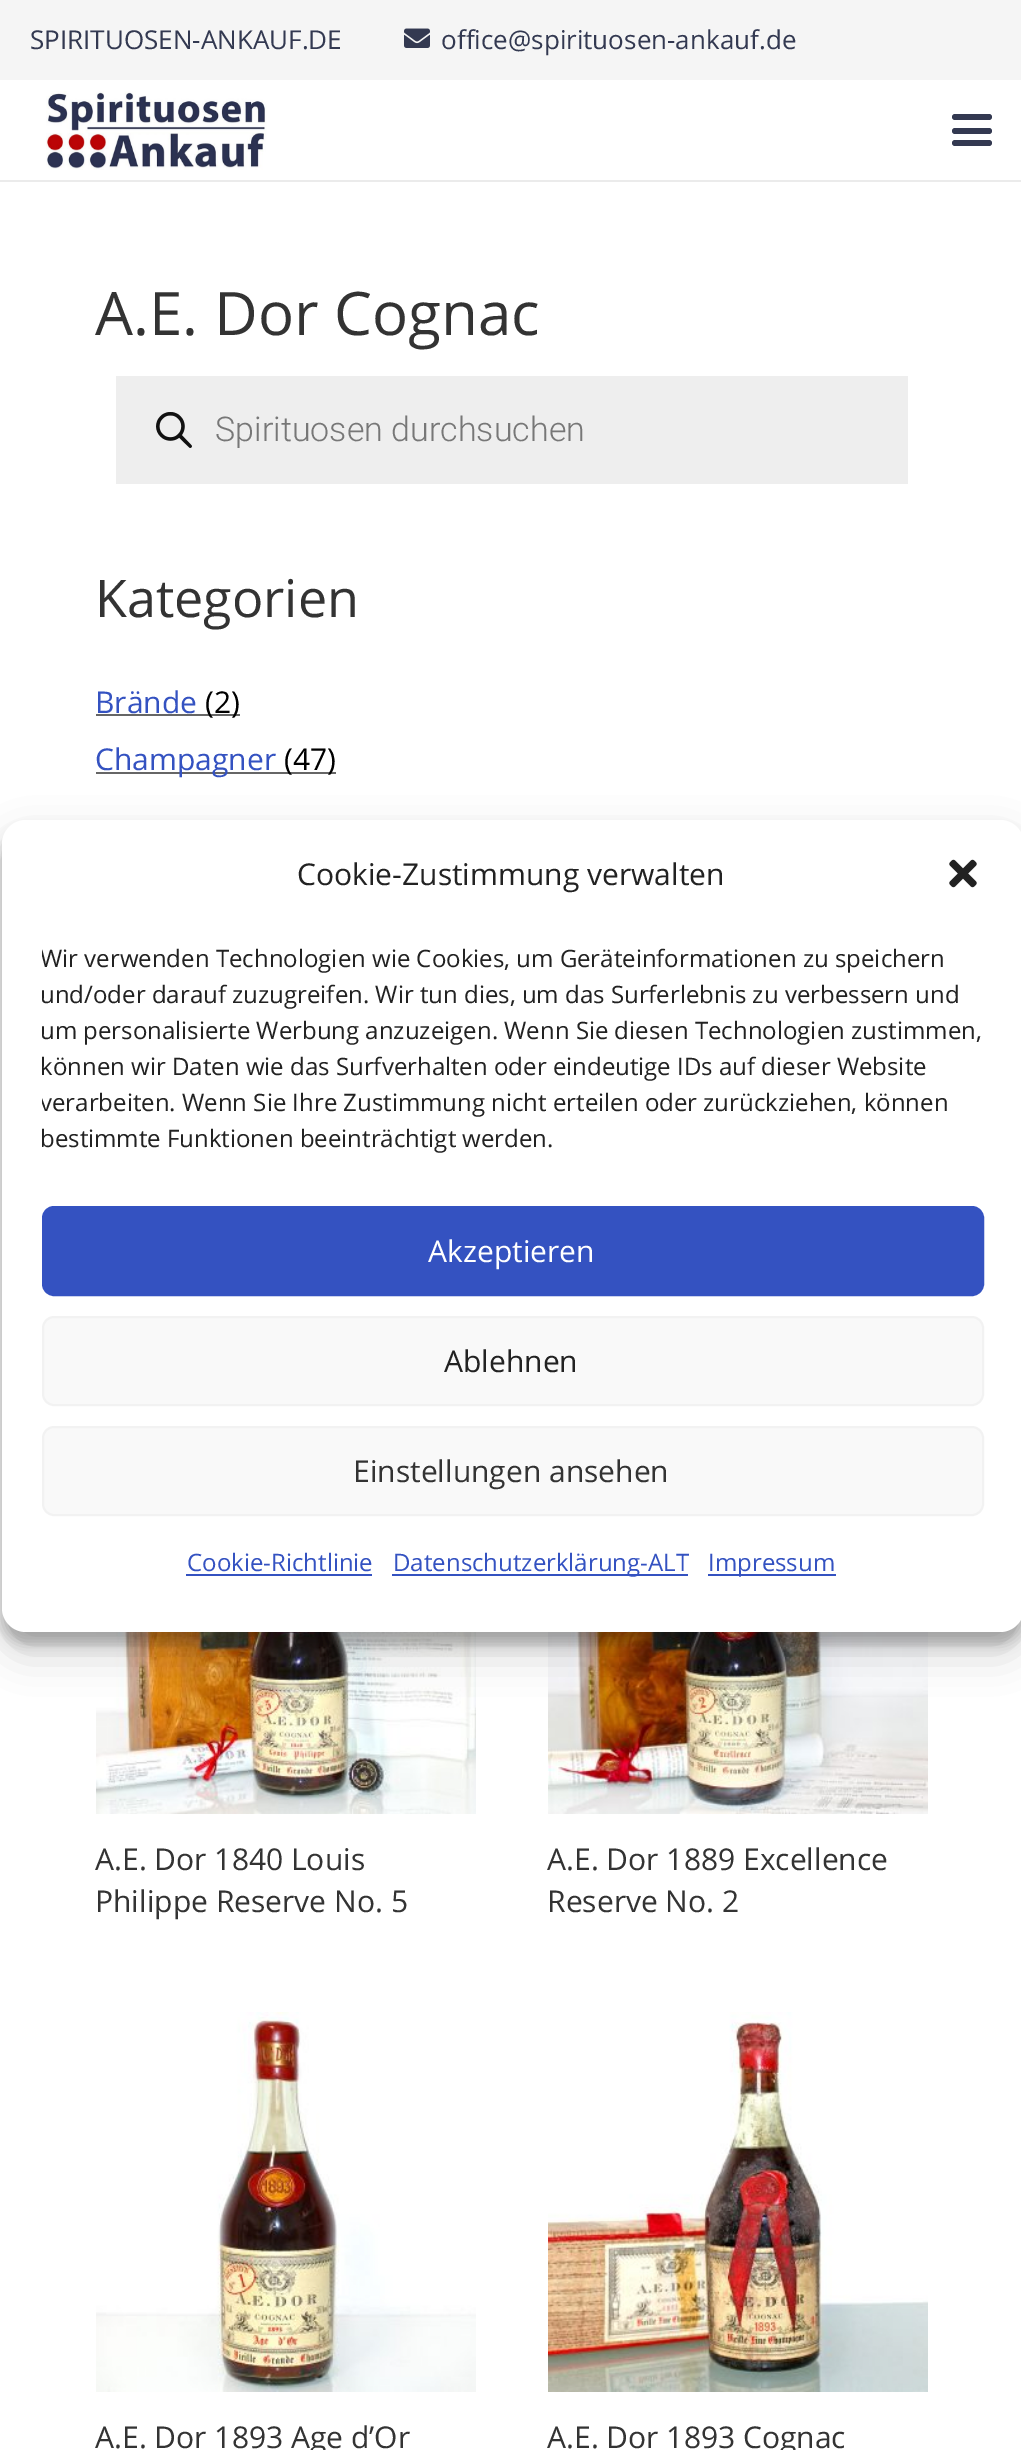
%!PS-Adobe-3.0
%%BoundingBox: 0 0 1021 2450
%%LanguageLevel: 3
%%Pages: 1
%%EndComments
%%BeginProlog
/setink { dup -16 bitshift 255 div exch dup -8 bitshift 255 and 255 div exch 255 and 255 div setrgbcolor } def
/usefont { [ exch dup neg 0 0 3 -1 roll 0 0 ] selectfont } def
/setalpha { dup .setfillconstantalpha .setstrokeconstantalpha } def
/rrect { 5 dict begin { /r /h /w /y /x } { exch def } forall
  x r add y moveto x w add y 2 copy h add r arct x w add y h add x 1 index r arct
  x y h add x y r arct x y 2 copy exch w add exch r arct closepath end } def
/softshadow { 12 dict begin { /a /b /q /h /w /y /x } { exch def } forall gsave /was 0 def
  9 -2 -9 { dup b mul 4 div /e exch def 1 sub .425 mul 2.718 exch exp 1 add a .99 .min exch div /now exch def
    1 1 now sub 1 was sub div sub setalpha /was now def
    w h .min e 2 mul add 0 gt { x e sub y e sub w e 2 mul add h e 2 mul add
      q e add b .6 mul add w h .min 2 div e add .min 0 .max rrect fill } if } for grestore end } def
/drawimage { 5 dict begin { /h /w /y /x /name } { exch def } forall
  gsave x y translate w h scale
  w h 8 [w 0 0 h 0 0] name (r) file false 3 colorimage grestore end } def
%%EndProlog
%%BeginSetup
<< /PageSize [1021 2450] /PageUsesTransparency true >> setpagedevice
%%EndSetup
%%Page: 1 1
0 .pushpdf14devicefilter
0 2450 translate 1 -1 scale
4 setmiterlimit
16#FFFFFF setink
0 0 1021 2450 rectfill
16#F5F5F5 setink
0 0 1021 80 rectfill
/OpenSans-Regular 26 usefont
16#333951 setink
30 49 moveto (SPIRITUOSEN-ANKAUF.DE) show
(img1.raw) 404 28 26 20 drawimage
441 49 moveto (office@spirituosen-ankauf.de) show
16#EBEBEB setink
0 180 1021 2 rectfill
(img2.raw) 46 91 221 79 drawimage
16#333951 setink
952 128 40 6 3 rrect fill
952 114 40 6 3 rrect fill
952 140 40 6 3 rrect fill
/OpenSans-Regular 60 usefont
16#333333 setink
95 335 moveto (A.E. Dor Cognac) show
16#EEEEEE setink
116 376 792 108 rectfill
(img3.raw) 156 412 36 36 drawimage
/Roboto-Light 34 usefont
16#777777 setink
215 441 moveto (Spirituosen durchsuchen) show
/OpenSans-Regular 52 usefont
16#333333 setink
95 617 moveto (Kategorien) show
/OpenSans-Regular 30 usefont
16#3452C1 setink
95 713 moveto (Brände) show
16#666666 setink
96 714 144 2 rectfill
16#000000 setink
205 713 moveto (\(2\)) show
16#666666 setink
96 772 240 2 rectfill
16#3452C1 setink
95 770 moveto (Champagner) show
16#000000 setink
284 770 moveto (\(47\)) show
(img4.raw) 96 1632 380 182 drawimage
16#333333 setink
95 1870 moveto (A.E. Dor 1840 Louis) show
95 1912 moveto (Philippe Reserve No. 5) show
(img5.raw) 548 1632 380 182 drawimage
547 1870 moveto (A.E. Dor 1889 Excellence) show
547 1912 moveto (Reserve No. 2) show
(img6.raw) 96 2012 380 380 drawimage
95 2448 moveto (A.E. Dor 1893 Age d’Or) show
(img7.raw) 548 2012 380 380 drawimage
547 2448 moveto (A.E. Dor 1893 Cognac) show
16#000000 setink
2 832 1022 812 24 6 0.23 softshadow
2 840 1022 812 24 20 0.19 softshadow
16#FFFFFF setink
2 820 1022 812 24 rrect fill
16#222222 setink
297 885 moveto (Cookie-Zustimmung verwalten) show
(img8.raw) 949 859 28 29 drawimage
gsave
42 940 942 226 rectclip
/OpenSans-Regular 24 usefont
[
    [(Wir verwenden Technologien wie Cookies, um Geräteinformationen zu speichern) 40 967]
    [(und/oder darauf zuzugreifen. Wir tun dies, um das Surferlebnis zu verbessern und) 40 1003]
    [(um personalisierte Werbung anzuzeigen. Wenn Sie diesen Technologien zustimmen,) 40 1039]
] { aload pop moveto show } forall
grestore
/OpenSans-Regular 24 usefont
40 1075 moveto (können wir Daten wie das Surfverhalten oder eindeutige IDs auf dieser Website) show
gsave
42 940 942 226 rectclip
40 1111 moveto (verarbeiten. Wenn Sie Ihre Zustimmung nicht erteilen oder zurückziehen, können) show
grestore
40 1147 moveto (bestimmte Funktionen beeinträchtigt werden.) show
16#3452C1 setink
43 1207 940 88 11 rrect gsave fill grestore
2 setlinewidth
stroke
/OpenSans-Regular 30 usefont
16#FFFFFF setink
428 1262 moveto (Akzeptieren) show
16#F9F9F9 setink
43 1317 940 88 11 rrect gsave fill grestore
16#F2F2F2 setink
stroke
16#222222 setink
444 1372 moveto (Ablehnen) show
16#F9F9F9 setink
43 1427 940 88 11 rrect gsave fill grestore
16#F2F2F2 setink
stroke
16#333333 setink
353 1482 moveto (Einstellungen ansehen) show
/OpenSans-Regular 24 usefont
16#3452C1 setink
187 1571 moveto (Cookie-Richtlinie) show
186 1574 186 2 rectfill
392 1574 296 2 rectfill
393 1571 moveto (Datenschutzerklärung-ALT) show
708 1574 128 2 rectfill
708 1571 moveto (Impressum) show
.poppdf14devicefilter showpage
%%EOF
